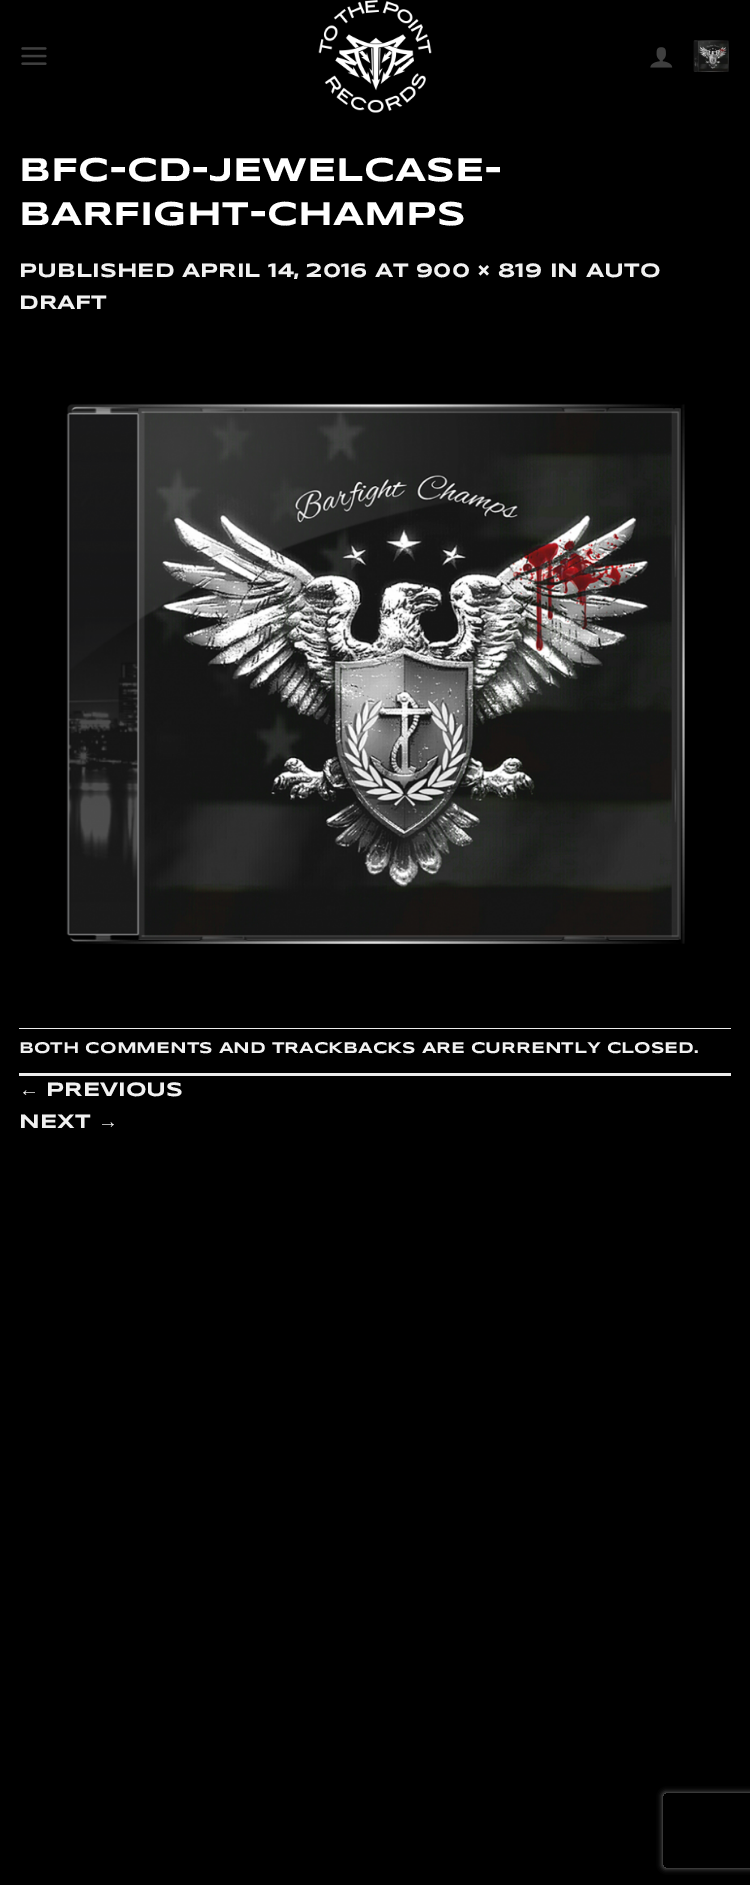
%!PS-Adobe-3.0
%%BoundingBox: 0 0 750 1885
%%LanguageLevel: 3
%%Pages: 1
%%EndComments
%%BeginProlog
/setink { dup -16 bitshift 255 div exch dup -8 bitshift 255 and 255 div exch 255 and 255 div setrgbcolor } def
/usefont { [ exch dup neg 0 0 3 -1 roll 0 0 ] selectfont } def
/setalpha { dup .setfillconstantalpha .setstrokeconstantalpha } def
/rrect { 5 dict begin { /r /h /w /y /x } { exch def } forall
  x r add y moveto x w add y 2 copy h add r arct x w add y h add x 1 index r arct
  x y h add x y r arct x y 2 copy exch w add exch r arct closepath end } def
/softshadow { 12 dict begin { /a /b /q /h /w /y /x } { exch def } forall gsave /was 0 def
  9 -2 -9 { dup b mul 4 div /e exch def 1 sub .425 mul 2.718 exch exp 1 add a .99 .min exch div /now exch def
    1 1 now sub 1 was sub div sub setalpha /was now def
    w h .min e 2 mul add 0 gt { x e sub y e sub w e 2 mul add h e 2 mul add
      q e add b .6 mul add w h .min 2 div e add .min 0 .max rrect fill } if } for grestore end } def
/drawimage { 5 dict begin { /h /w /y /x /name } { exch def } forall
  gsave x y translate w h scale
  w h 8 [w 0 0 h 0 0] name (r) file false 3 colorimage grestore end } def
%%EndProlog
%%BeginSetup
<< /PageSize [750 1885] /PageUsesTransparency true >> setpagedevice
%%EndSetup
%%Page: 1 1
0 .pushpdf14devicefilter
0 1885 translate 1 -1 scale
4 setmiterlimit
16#000000 setink
0 0 750 1885 rectfill
(img1.raw) 21 47 26 18 drawimage
(img2.raw) 318 0 114 113 drawimage
(img3.raw) 650 47 23 21 drawimage
(img4.raw) 693 40 36 32 drawimage
/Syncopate-Bold 34 usefont
16#FFFFFF setink
19 181 moveto (BFC-CD-JEWELCASE-) show
19 225 moveto (BARFIGHT-CHAMPS) show
/Syncopate-Bold 20 usefont
16#F1F1F1 setink
19 277 moveto (PUBLISHED APRIL 14, 2016 AT 900 × 819 IN AUTO) show
19 309 moveto (DRAFT) show
(img5.raw) 66 403 619 542 drawimage
16#ECECEC setink
19 1028 712 1 rectfill
19 1073 712 3 rectfill
/Syncopate-Bold 16 usefont
16#F1F1F1 setink
19 1053 moveto (BOTH COMMENTS AND TRACKBACKS ARE CURRENTLY CLOSED.) show
/LiberationSerif-Bold 20 usefont
19 1096 moveto (←) show
/Syncopate-Bold 20 usefont
46 1096 moveto (PREVIOUS) show
19 1128 moveto (NEXT) show
/LiberationSerif-Bold 20 usefont
98 1128 moveto (→) show
gsave
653 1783 moveto 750 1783 lineto 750 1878 lineto 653 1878 lineto closepath 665.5 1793 moveto 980.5 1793 lineto 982 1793 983 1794 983 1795.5 curveto 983 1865.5 lineto 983 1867 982 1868 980.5 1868 curveto 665.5 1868 lineto 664 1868 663 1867 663 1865.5 curveto 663 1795.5 lineto 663 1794 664 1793 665.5 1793 curveto closepath eoclip newpath
16#808080 setink
663 1793 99 75 2.5 3 1 softshadow
grestore
.poppdf14devicefilter showpage
%%EOF
